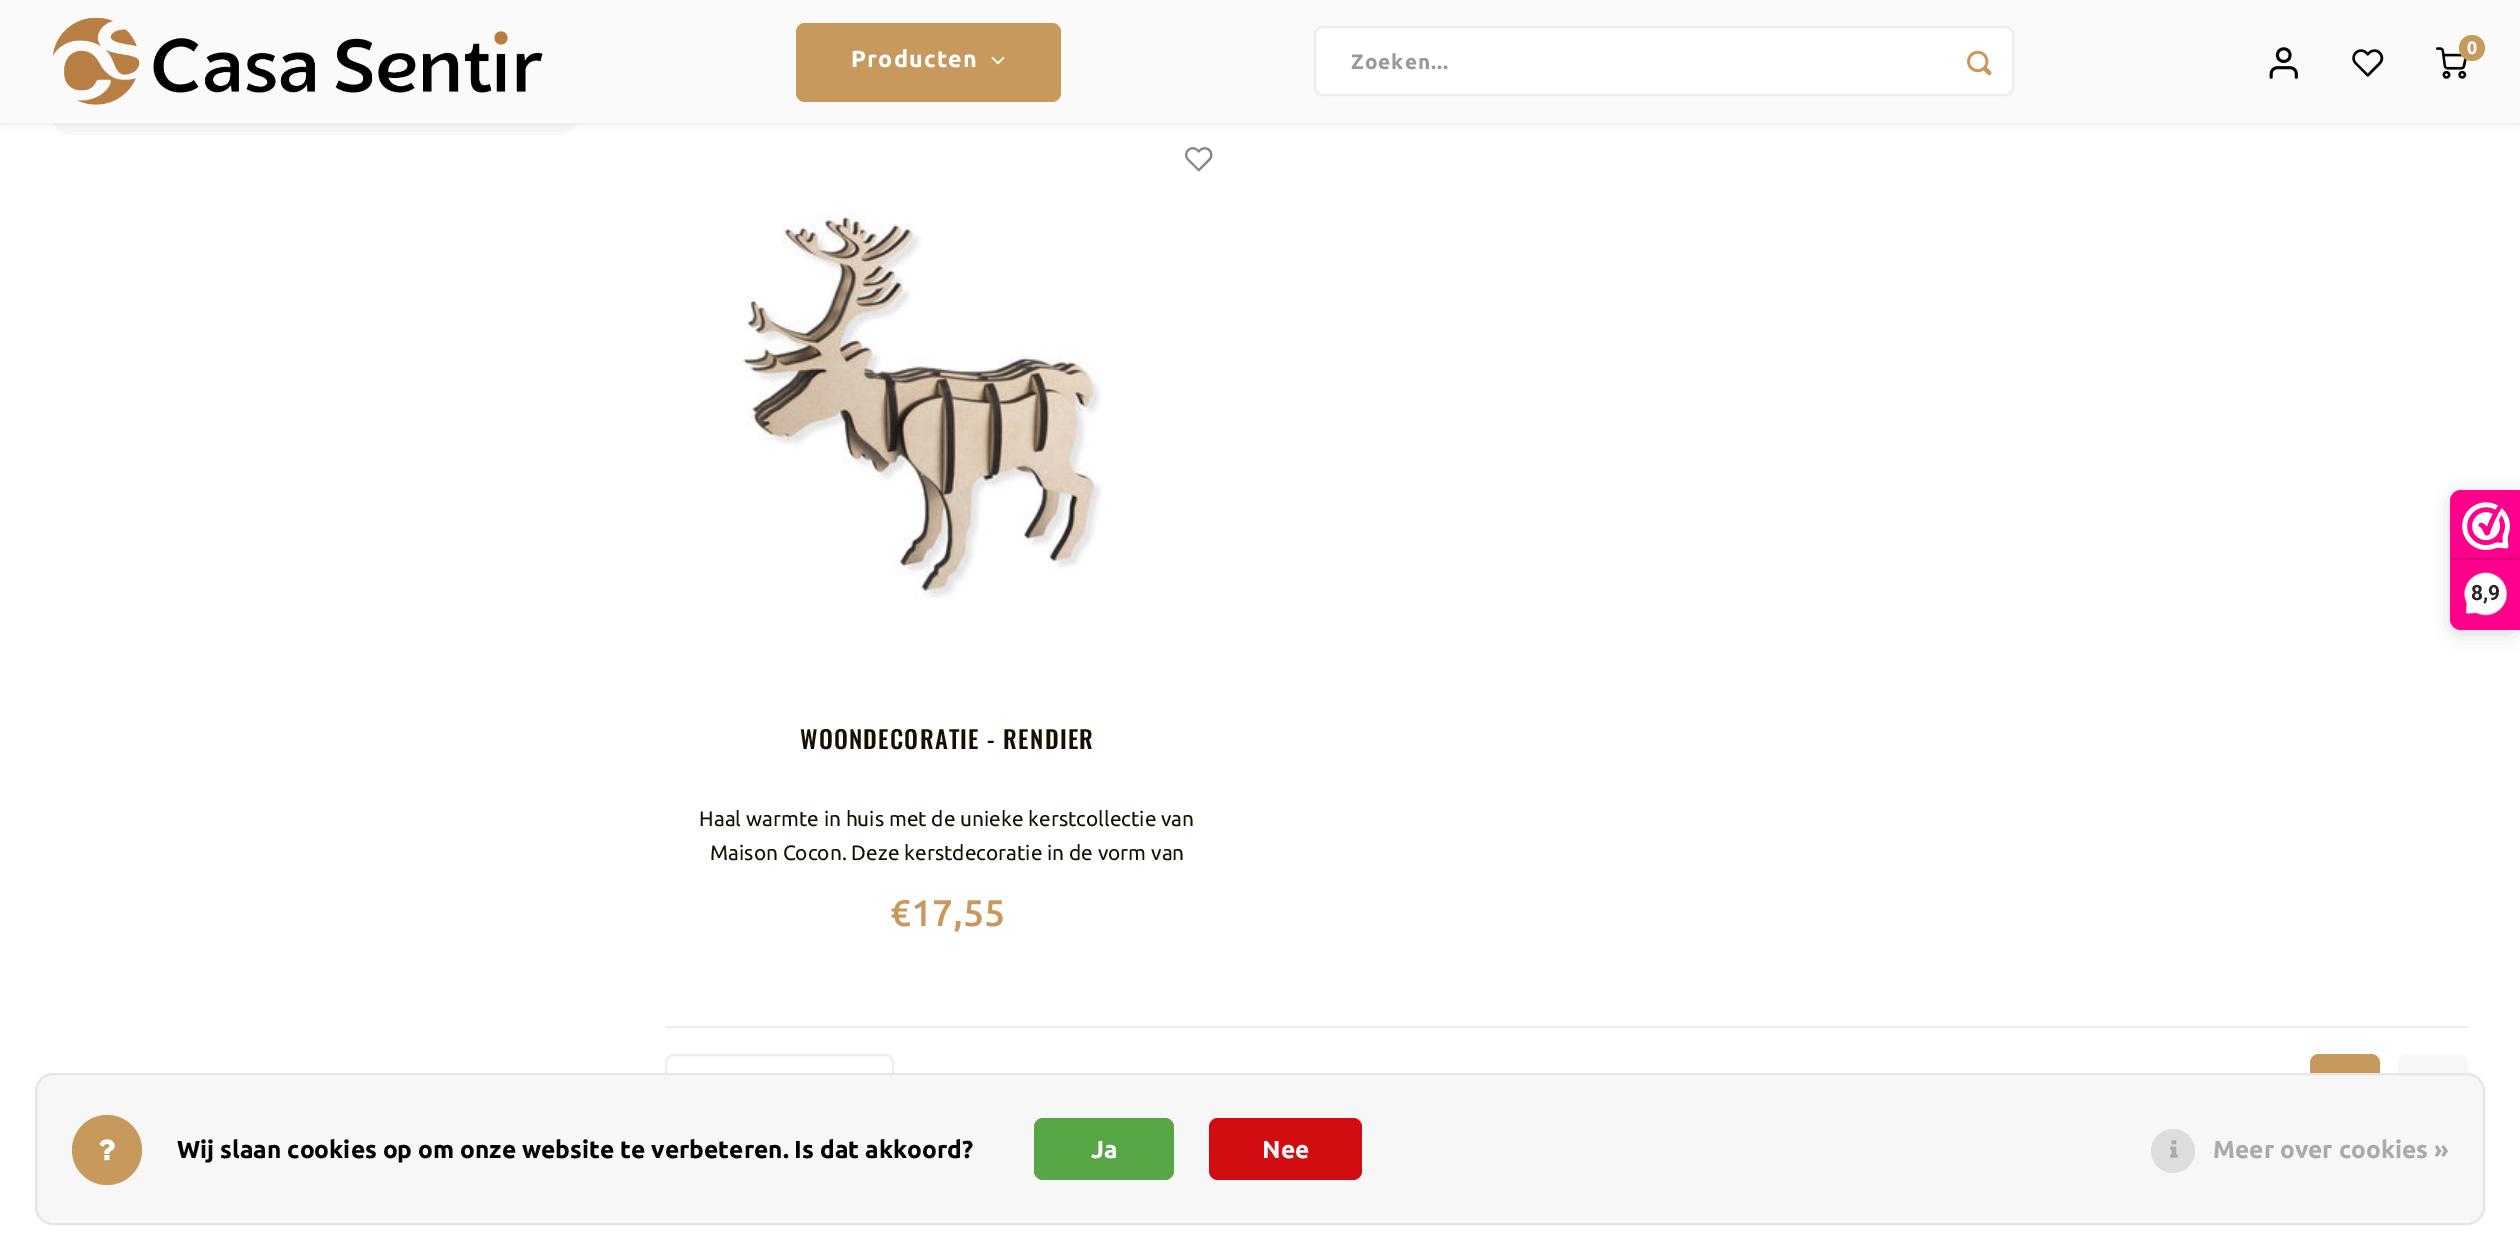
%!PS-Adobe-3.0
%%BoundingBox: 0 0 2520 1260
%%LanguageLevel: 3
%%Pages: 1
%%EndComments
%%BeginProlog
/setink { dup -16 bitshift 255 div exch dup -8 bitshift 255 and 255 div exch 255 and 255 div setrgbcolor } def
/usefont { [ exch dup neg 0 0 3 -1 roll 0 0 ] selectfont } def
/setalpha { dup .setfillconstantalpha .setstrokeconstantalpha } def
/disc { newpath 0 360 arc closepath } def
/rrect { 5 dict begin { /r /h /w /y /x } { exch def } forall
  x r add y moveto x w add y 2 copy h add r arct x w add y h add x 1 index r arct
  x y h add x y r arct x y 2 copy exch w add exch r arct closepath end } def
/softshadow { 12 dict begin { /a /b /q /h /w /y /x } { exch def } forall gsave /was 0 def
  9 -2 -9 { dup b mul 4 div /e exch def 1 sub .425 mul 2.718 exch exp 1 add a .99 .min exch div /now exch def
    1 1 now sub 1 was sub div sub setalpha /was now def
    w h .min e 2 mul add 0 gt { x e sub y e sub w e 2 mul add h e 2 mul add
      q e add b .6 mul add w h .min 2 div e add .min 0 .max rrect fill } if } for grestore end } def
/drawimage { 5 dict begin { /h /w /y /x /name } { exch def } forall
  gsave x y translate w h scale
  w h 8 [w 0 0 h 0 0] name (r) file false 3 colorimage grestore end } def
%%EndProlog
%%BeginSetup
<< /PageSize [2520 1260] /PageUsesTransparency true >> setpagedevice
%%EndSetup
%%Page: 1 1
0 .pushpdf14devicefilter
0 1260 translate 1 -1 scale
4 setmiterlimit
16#FFFFFF setink
0 0 2520 1260 rectfill
16#F7F7F7 setink
53 -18 525 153 18 rrect fill
16#000000 setink
0 2 2520 122 0 3.5 0.08 softshadow
16#FAFAFA setink
0 0 2520 123 rectfill
(img1.raw) 53 18 490 87 drawimage
16#C8995C setink
796 23 265 79 9 rrect fill
/Ubuntu-Bold 23.25 usefont
16#FFFFFF setink
851 67 moveto 1.25 0 (Producten) ashow
(img2.raw) 991 56 14 9 drawimage
1315 27 698 68 8 rrect gsave fill grestore
16#EDEDED setink
2 setlinewidth
stroke
/Ubuntu-Bold 20.8 usefont
16#999999 setink
1351 69 moveto 1 0 (Zoeken...) ashow
(img3.raw) 1967 50 25 26 drawimage
(img4.raw) 2269 47 29 32 drawimage
(img5.raw) 2352 49 32 28 drawimage
(img6.raw) 2436 47 31 32 drawimage
16#C8995C setink
2472 48 13 disc fill
/Ubuntu-Bold 18 usefont
16#FFFFFF setink
2467 54 moveto (0) show
16#000000 setink
2450 494 70 140 11 9 0.15 softshadow
16#FE008C setink
2461 490 moveto 2520 490 lineto 2520 630 lineto 2461 630 lineto 2455 630 2450 625 2450 619 curveto 2450 501 lineto 2450 495 2455 490 2461 490 curveto closepath fill
(img7.raw) 2462 502 48 48 drawimage
16#D80077 setink
2452 558 68 2 rectfill
(img8.raw) 2464 572 44 44 drawimage
/Roboto-Bold 21 usefont
16#272626 setink
2471 600 moveto (8,9) show
(img9.raw) 1185 147 28 25 drawimage
(img10.raw) 738 211 364 388 drawimage
/Oswald-Medium 24.5 usefont
16#160F02 setink
800 749 moveto 1.25 0 (WOONDECORATIE - RENDIER) ashow
/Ubuntu-Regular 20.8 usefont
699 826 moveto (Haal warmte in huis met de unieke kerstcollectie van) show
710 860 moveto (Maison Cocon. Deze kerstdecoratie in de vorm van) show
/Ubuntu-Medium 37 usefont
16#C8995C setink
890 926 moveto (€17,55) show
16#EDEDED setink
665 1026 1803 2 rectfill
666 1055 227 68 8 rrect stroke
16#C8995C setink
2310 1054 70 70 9 rrect fill
16#F7F7F7 setink
2398 1054 70 70 9 rrect fill
35 1073 2450 152 18 rrect fill
0.07 setalpha
16#000000 setink
36 1074 2448 150 17 rrect stroke
1 setalpha
16#C8995C setink
107 1150 35 disc fill
(img11.raw) 99 1139 16 22 drawimage
/Ubuntu-Bold 24.5 usefont
16#000000 setink
177 1158 moveto (Wij slaan cookies op om onze website te verbeteren. Is dat akkoord?) show
16#58A747 setink
1034 1118 140 62 9 rrect fill
16#FFFFFF setink
1091 1158 moveto (Ja) show
16#D20D11 setink
1209 1118 153 62 9 rrect fill
16#FFFFFF setink
1262 1158 moveto (Nee) show
16#DDDDDD setink
2173 1151 22 disc fill
(img12.raw) 2170 1140 8 18 drawimage
16#AAAAAA setink
2213 1158 moveto (Meer over cookies ») show
.poppdf14devicefilter showpage
%%EOF
